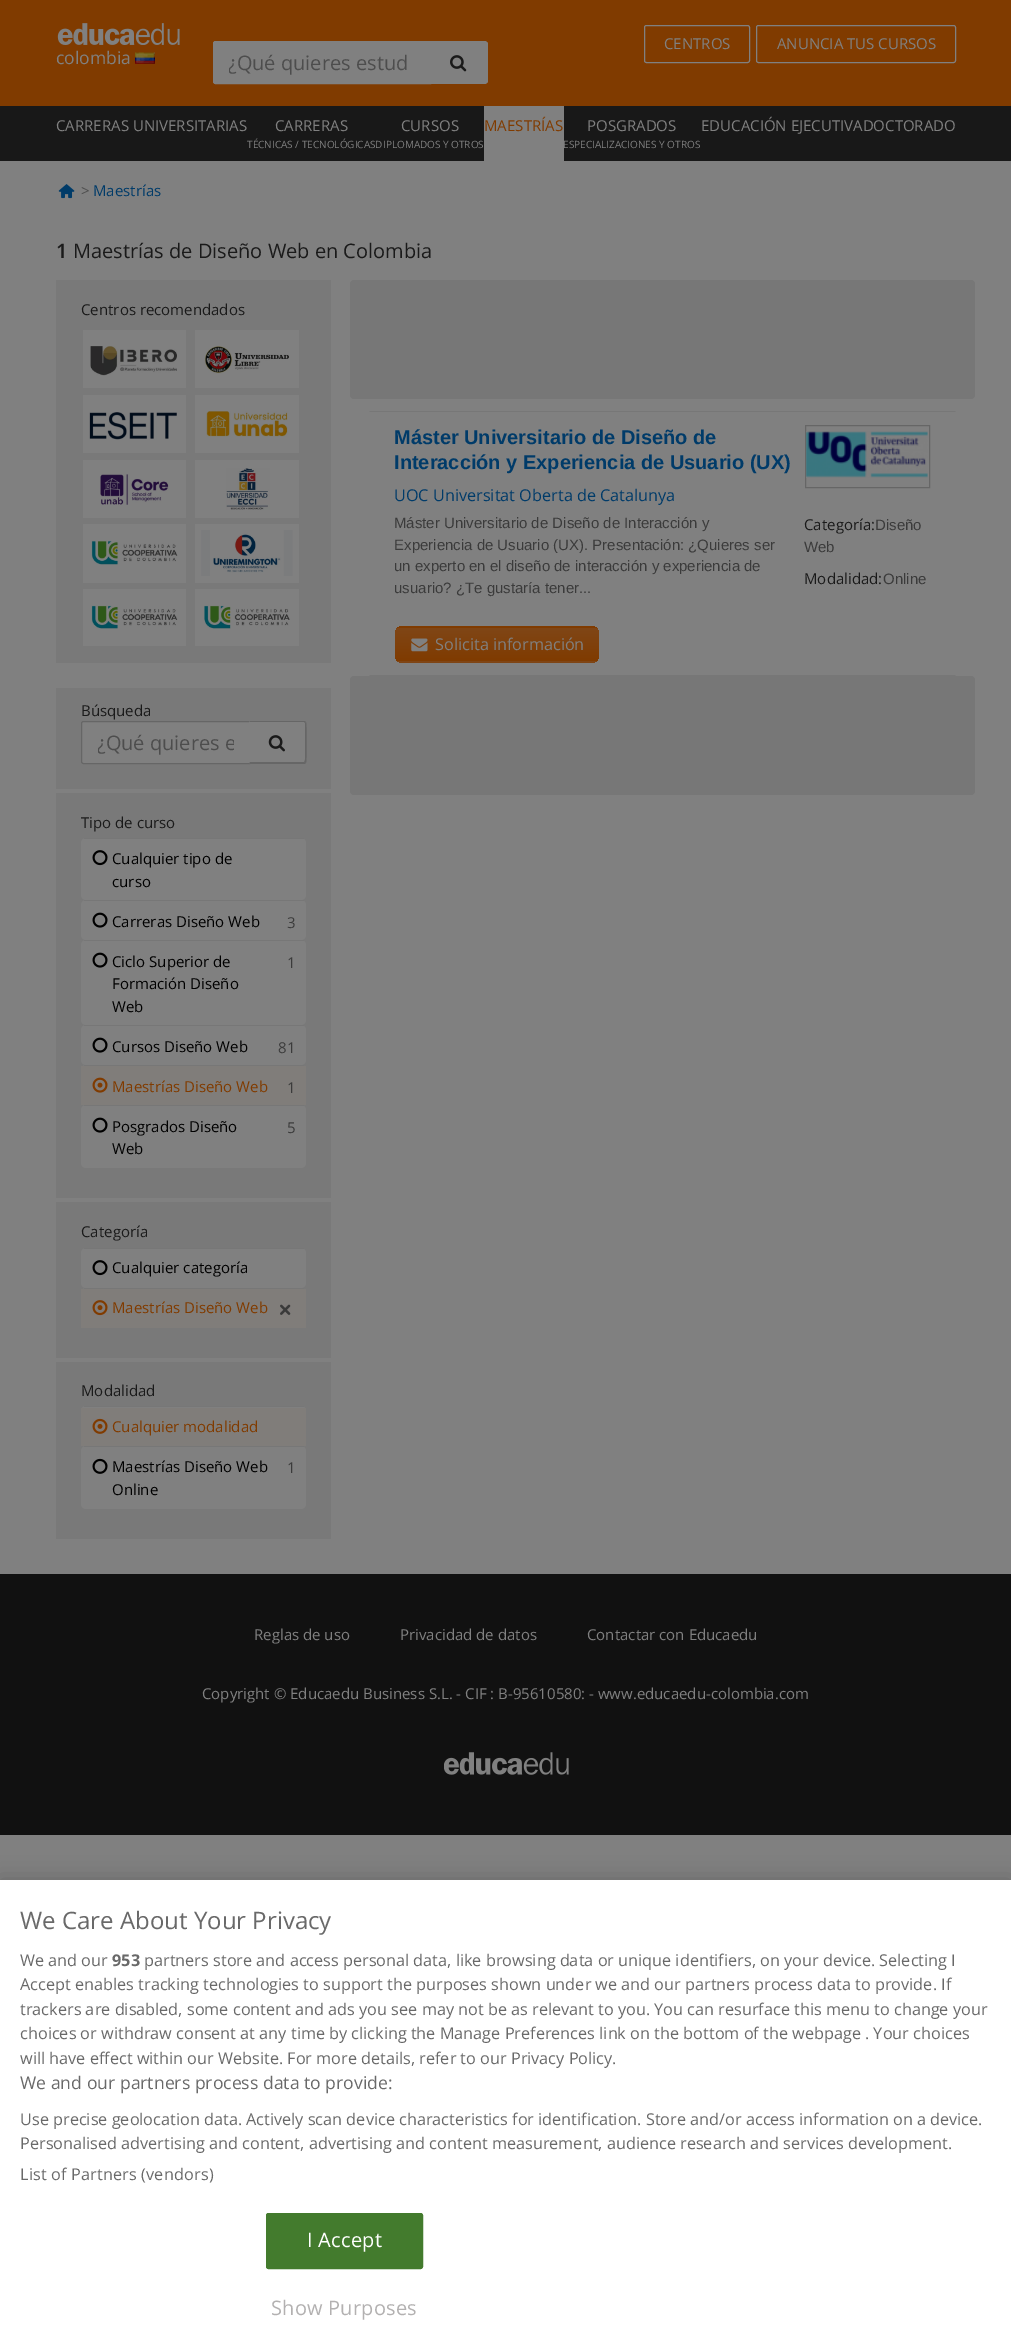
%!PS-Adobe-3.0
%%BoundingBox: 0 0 1011 2347
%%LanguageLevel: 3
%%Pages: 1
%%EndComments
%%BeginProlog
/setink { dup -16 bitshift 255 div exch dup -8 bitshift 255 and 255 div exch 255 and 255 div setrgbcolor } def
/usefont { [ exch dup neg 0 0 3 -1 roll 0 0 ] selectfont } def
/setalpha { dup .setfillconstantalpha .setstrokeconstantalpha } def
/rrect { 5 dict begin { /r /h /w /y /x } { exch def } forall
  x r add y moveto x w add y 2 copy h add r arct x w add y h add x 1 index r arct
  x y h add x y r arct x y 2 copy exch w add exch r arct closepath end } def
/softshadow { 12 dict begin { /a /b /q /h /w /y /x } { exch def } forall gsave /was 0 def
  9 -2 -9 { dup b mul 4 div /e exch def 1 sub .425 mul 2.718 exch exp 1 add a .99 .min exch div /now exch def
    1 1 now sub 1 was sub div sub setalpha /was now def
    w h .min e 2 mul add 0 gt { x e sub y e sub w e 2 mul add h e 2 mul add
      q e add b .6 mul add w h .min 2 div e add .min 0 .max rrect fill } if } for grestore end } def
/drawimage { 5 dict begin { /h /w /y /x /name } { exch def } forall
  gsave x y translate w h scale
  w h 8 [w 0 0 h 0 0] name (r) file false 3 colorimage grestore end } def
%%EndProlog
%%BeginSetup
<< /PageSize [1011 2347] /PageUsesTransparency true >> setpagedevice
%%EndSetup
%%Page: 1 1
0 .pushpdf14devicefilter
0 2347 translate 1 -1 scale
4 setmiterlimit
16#808080 setink
0 0 1011 2347 rectfill
16#803B00 setink
0 0 1011 106 rectfill
16#808080 setink
644.5 25.5 105 37 2 rrect stroke
/OpenSans-Regular 15 usefont
664 49 moveto (CENTROS) show
756.5 25.5 199 37 2 rrect stroke
777 49 moveto (ANUNCIA TUS CURSOS) show
(img1.raw) 57 23 123 22 drawimage
/OpenSans-Regular 17.5 usefont
56 64 moveto (colombia) show
(img2.raw) 135 52 20 12 drawimage
215.5 41.5 moveto 430.5 41.5 lineto 430.5 83.5 lineto 215.5 83.5 lineto 214.5 83.5 213.5 82.5 213.5 81.5 curveto 213.5 43.5 lineto 213.5 42.5 214.5 41.5 215.5 41.5 curveto closepath gsave fill grestore
stroke
gsave
229 49 181 27 rectclip
/OpenSans-Regular 20 usefont
16#4D4D4D setink
228 70 moveto (¿Qué quieres estud) show
grestore
430 41 moveto 484 41 lineto 486 41 488 43 488 45 curveto 488 80 lineto 488 82 486 84 484 84 curveto 430 84 lineto closepath fill
431 42 moveto 430 41 lineto 485 41 lineto 487 42 lineto 485 43 lineto 484 42 lineto closepath fill
488 82 moveto 487 83 lineto 485 81 lineto 486 80 lineto 486 77 487 45 485 43 curveto 487 42 lineto 488 43 lineto closepath fill
485 84 moveto 430 84 lineto 432 82 lineto 438 82 484 83 485 81 curveto 487 83 lineto closepath fill
(img3.raw) 450 55 17 17 drawimage
16#181818 setink
0 106 1011 55 rectfill
/OpenSans-Regular 15 usefont
16#808080 setink
56 131 moveto (CARRERAS UNIVERSITARIAS) show
275 131 moveto (CARRERAS) show
/OpenSans-Regular 10 usefont
247 148 moveto (TÉCNICAS / TECNOLÓGICASDIPLOMADOS Y OTROS) show
484 106 80 55 rectfill
/OpenSans-Regular 15 usefont
16#803B00 setink
484 131 moveto (MAESTRÍAS) show
16#808080 setink
[
    [(EDUCACIÓN EJECUTIVADOCTORADO) 701 131]
    [(CURSOS) 401 131]
    [(POSGRADOS) 587 131]
] { aload pop moveto show } forall
/OpenSans-Regular 10 usefont
563 148 moveto (ESPECIALIZACIONES Y OTROS) show
(img4.raw) 58 184 17 15 drawimage
/OpenSans-Regular 15 usefont
16#4D4D4D setink
81 196 moveto (>) show
16#003B69 setink
93 196 moveto (Maestrías) show
/OpenSans-SemiBold 20 usefont
16#1A1A1A setink
56 258 moveto (1) show
/OpenSans-Regular 20 usefont
73 258 moveto (Maestrías de Diseño Web en Colombia) show
16#797979 setink
56 280 275 383 rectfill
/OpenSans-Regular 15 usefont
16#1A1A1A setink
81 315 moveto (Centros recomendados) show
16#808080 setink
83 330 103 58 rectfill
(img5.raw) 90 346 87 30 drawimage
195 330 104 58 rectfill
(img6.raw) 204 346 85 28 drawimage
83 395 103 58 rectfill
(img7.raw) 89 412 88 28 drawimage
195 395 104 58 rectfill
(img8.raw) 206 411 82 26 drawimage
83 460 103 58 rectfill
(img9.raw) 100 474 69 31 drawimage
195 460 104 58 rectfill
(img10.raw) 226 468 44 42 drawimage
83 524 103 59 rectfill
(img11.raw) 91 540 87 25 drawimage
195 524 104 59 rectfill
(img12.raw) 201 530 92 46 drawimage
83 589 103 57 rectfill
(img13.raw) 91 605 87 24 drawimage
195 589 104 57 rectfill
(img14.raw) 204 605 86 24 drawimage
16#797979 setink
56 688 275 851 rectfill
16#808080 setink
56 789 275 4 rectfill
16#1A1A1A setink
81 716 moveto (Búsqueda) show
16#808080 setink
83.5 721.5 moveto 249.5 721.5 lineto 249.5 763.5 lineto 83.5 763.5 lineto 82.5 763.5 81.5 762.5 81.5 761.5 curveto 81.5 723.5 lineto 81.5 722.5 82.5 721.5 83.5 721.5 curveto closepath gsave fill grestore
16#666666 setink
stroke
gsave
98 729 136 27 rectclip
/OpenSans-Regular 20 usefont
16#4D4D4D setink
97 750 moveto (¿Qué quieres e) show
grestore
16#808080 setink
249 721 moveto 303.5 721 lineto 305 721 306 722 306 723.5 curveto 306 761.5 lineto 306 763 305 764 303.5 764 curveto 249 764 lineto closepath fill
16#666666 setink
250 722 moveto 249 721 lineto 305 721 lineto 306 722 lineto 305 723 lineto 304 722 lineto closepath fill
306 722 moveto 307 724 307 761 306 763 curveto 304 762 lineto 306 761 305 750 305 749 curveto 305 723 lineto closepath fill
249 764 moveto 250 762 lineto 304 762 lineto 306 763 lineto 305 764 lineto closepath fill
(img15.raw) 268 735 17 17 drawimage
16#808080 setink
56 1198 275 4 rectfill
16#1A1A1A setink
81 828 moveto (Tipo de curso) show
16#808080 setink
81 838 225 62 5 rrect fill
16#777777 setink
84 838 220 1 rectfill
(img16.raw) 92 850 16 16 drawimage
16#000000 setink
112 864 moveto (Cualquier tipo de) show
112 887 moveto (curso) show
16#808080 setink
81 900 225 40 5 rrect fill
16#777777 setink
84 900 220 1 rectfill
(img17.raw) 92 912 16 16 drawimage
16#000000 setink
112 927 moveto (Carreras Diseño Web) show
16#3B3B3B setink
287 928 moveto (3) show
16#808080 setink
81 940 225 85 5 rrect fill
16#777777 setink
84 940 220 1 rectfill
(img17.raw) 92 952 16 16 drawimage
16#000000 setink
[
    [(Ciclo Superior de) 112 967]
    [(Formación Diseño) 112 989]
    [(Web) 112 1012]
] { aload pop moveto show } forall
16#3B3B3B setink
287 968 moveto (1) show
16#808080 setink
81 1025 225 40 5 rrect fill
16#777777 setink
84 1025 220 1 rectfill
(img17.raw) 92 1037 16 16 drawimage
16#000000 setink
112 1052 moveto (Cursos Diseño Web) show
16#3B3B3B setink
278 1053 moveto (81) show
16#808080 setink
81 1065 225 40 5 rrect fill
16#777777 setink
84 1065 220 1 rectfill
16#807D7A setink
81 1066 225 39 rectfill
(img18.raw) 92 1077 16 16 drawimage
16#803B00 setink
112 1092 moveto (Maestrías Diseño Web) show
16#3B3B3B setink
287 1093 moveto (1) show
16#808080 setink
81 1105 225 63 5 rrect fill
16#777777 setink
84 1105 220 1 rectfill
(img17.raw) 92 1117 16 16 drawimage
16#000000 setink
112 1132 moveto (Posgrados Diseño) show
112 1154 moveto (Web) show
16#3B3B3B setink
287 1133 moveto (5) show
16#808080 setink
56 1358 275 4 rectfill
16#1A1A1A setink
81 1237 moveto (Categoría) show
16#808080 setink
81 1248 225 40 5 rrect fill
16#777777 setink
84 1248 220 1 rectfill
(img16.raw) 92 1260 16 16 drawimage
16#000000 setink
112 1273 moveto (Cualquier categoría) show
16#808080 setink
81 1288 225 40 5 rrect fill
16#777777 setink
84 1288 220 1 rectfill
16#807D7A setink
81 1289 225 39 rectfill
(img19.raw) 92 1300 16 16 drawimage
16#803B00 setink
112 1313 moveto (Maestrías Diseño Web) show
(img20.raw) 280 1304 11 11 drawimage
16#1A1A1A setink
81 1396 moveto (Modalidad) show
16#808080 setink
81 1406 225 40 5 rrect fill
16#777777 setink
84 1406 220 1 rectfill
16#807D7A setink
81 1408 225 38 rectfill
(img21.raw) 92 1418 16 16 drawimage
16#803B00 setink
112 1432 moveto (Cualquier modalidad) show
16#808080 setink
81 1446 225 63 5 rrect fill
16#777777 setink
84 1446 220 1 rectfill
(img22.raw) 92 1458 16 16 drawimage
16#000000 setink
112 1472 moveto (Maestrías Diseño Web) show
112 1495 moveto (Online) show
16#3B3B3B setink
287 1473 moveto (1) show
16#777777 setink
350 280 625 119 4 rrect fill
369 411 moveto 956 411 lineto 955 412 lineto 370 412 lineto closepath fill
956 676 moveto 369 676 lineto 370 675 lineto 955 675 lineto closepath fill
/LiberationSans-Bold 20 usefont
16#003B69 setink
394 444 moveto (Máster Universitario de Diseño de) show
394 469 moveto (Interacción y Experiencia de Usuario \(UX\)) show
/OpenSans-Regular 16.25 usefont
394 501 moveto (UOC Universitat Oberta de Catalunya) show
16#666666 setink
805.5 425.5 124 62 rectstroke
(img23.raw) 806 431 122 47 drawimage
/LiberationSans-Regular 15 usefont
16#3B3B3B setink
[
    [(Máster Universitario de Diseño de Interacción y) 394 528]
    [(Experiencia de Usuario \(UX\). Presentación: ¿Quieres ser) 394 550]
    [(un experto en el diseño de interacción y experiencia de) 394 571]
    [(usuario? ¿Te gustaría tener...) 394 593]
] { aload pop moveto show } forall
/OpenSans-Regular 15 usefont
16#1A1A1A setink
804 530 moveto (Categoría:) show
/LiberationSans-Regular 15 usefont
16#3B3B3B setink
875 530 moveto (Diseño) show
804 552 moveto (Web) show
/OpenSans-Regular 15 usefont
16#1A1A1A setink
804 584 moveto (Modalidad:) show
/LiberationSans-Regular 15 usefont
16#3B3B3B setink
883 584 moveto (Online) show
gsave
395 626 204 37 8 rrect clip newpath
gsave 395 626 moveto 599 626 lineto 599 628 lineto 395 628 lineto closepath clip newpath
<< /ShadingType 2 /ColorSpace /DeviceRGB /Coords [497 594 497 628] /Extend [true true] /Function << /FunctionType 2 /Domain [0 1] /C0 [0.498 0.275 0.086] /C1 [0.502 0.231 0] /N 1 >> >> shfill grestore
gsave 395 628 moveto 599 628 lineto 599 661 lineto 395 661 lineto closepath clip newpath
<< /ShadingType 2 /ColorSpace /DeviceRGB /Coords [497 628 497 661] /Extend [true true] /Function << /FunctionType 2 /Domain [0 1] /C0 [0.498 0.275 0.086] /C1 [0.502 0.231 0] /N 1 >> >> shfill grestore
gsave 395 661 moveto 599 661 lineto 599 663 lineto 395 663 lineto closepath clip newpath
<< /ShadingType 2 /ColorSpace /DeviceRGB /Coords [497 661 497 695] /Extend [true true] /Function << /FunctionType 2 /Domain [0 1] /C0 [0.498 0.275 0.086] /C1 [0.502 0.231 0] /N 1 >> >> shfill grestore
grestore
(img24.raw) 411 638 17 14 drawimage
/OpenSans-Regular 16.25 usefont
16#808080 setink
435 650 moveto (Solicita información) show
16#777777 setink
350 676 625 119 4 rrect fill
16#111111 setink
0 1574 1011 261 rectfill
/OpenSans-Regular 15 usefont
16#808080 setink
[
    [(Reglas de uso) 254 1640]
    [(Privacidad de datos) 400 1640]
    [(Contactar con Educaedu) 587 1640]
    [(Copyright © Educaedu Business S.L. - CIF : B-95610580: - www.educaedu-colombia.com) 202 1699]
] { aload pop moveto show } forall
(img25.raw) 444 1752 125 23 drawimage
16#000000 setink
0 1880 1011 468 0 11 0.2 softshadow
16#FFFFFF setink
0 1880 1011 467 rectfill
/OpenSans-Regular 24 usefont
16#696969 setink
20 1929 moveto (We Care About Your Privacy) show
/OpenSans-Regular 16.25 usefont
20 1966 moveto (We and our) show
/OpenSans-Bold 16.25 usefont
112 1966 moveto (953) show
/OpenSans-Regular 16.25 usefont
[
    [(partners store and access personal data, like browsing data or unique identifiers, on your device. Selecting I) 144 1966]
    [(Accept enables tracking technologies to support the purposes shown under we and our partners process data to provide. If) 20 1990]
    [(trackers are disabled, some content and ads you see may not be as relevant to you. You can resurface this menu to change your) 20 2015]
    [(choices or withdraw consent at any time by clicking the Manage Preferences link on the bottom of the webpage . Your choices) 20 2039]
    [(will have effect within our Website. For more details, refer to our Privacy Policy.) 20 2064]
] { aload pop moveto show } forall
/OpenSans-Regular 17.6 usefont
20 2089 moveto (We and our partners process data to provide:) show
/OpenSans-Regular 16.25 usefont
20 2125 moveto (Use precise geolocation data. Actively scan device characteristics for identification. Store and/or access information on a device.) show
20 2149 moveto (Personalised advertising and content, advertising and content measurement, audience research and services development.) show
20 2180 moveto 0.15 0 (List of Partners \(vendors\)) ashow
16#437B2D setink
266.5 2213.5 156 55 2 rrect gsave fill grestore
stroke
/OpenSans-Regular 20 usefont
16#FFFFFF setink
307 2247 moveto 0.25 0 (I Accept) ashow
16#B3B1B1 setink
271 2315 moveto 0.25 0 (Show Purposes) ashow
.poppdf14devicefilter showpage
%%EOF
